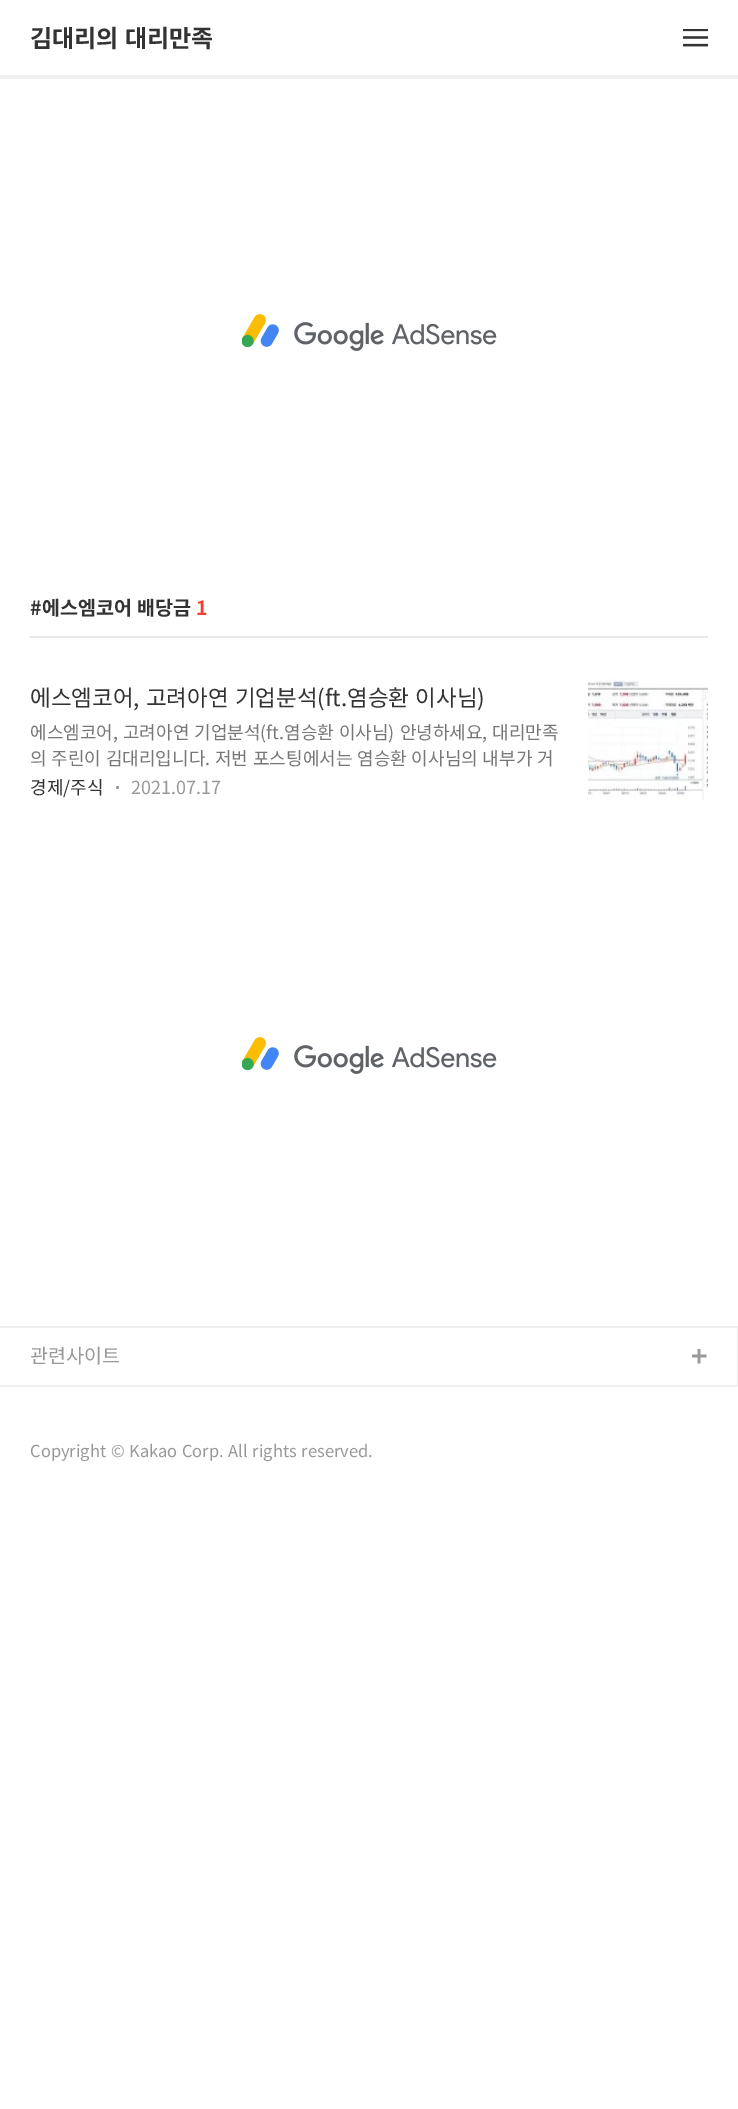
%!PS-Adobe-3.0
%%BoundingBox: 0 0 738 2109
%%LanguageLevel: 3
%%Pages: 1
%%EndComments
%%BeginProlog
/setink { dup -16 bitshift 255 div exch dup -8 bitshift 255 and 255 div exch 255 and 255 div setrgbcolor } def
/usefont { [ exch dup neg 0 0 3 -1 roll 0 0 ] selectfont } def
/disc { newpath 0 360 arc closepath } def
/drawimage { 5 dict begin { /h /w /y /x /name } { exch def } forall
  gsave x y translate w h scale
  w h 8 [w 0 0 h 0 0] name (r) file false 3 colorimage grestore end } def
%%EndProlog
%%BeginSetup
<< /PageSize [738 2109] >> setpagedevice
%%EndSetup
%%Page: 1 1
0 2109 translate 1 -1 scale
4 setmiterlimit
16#FFFFFF setink
0 0 738 2109 rectfill
16#EFEFEF setink
0 75 738 4 rectfill
/NotoSansKR-Bold 24 usefont
16#333333 setink
30 47 moveto 1 0 32 (김대리의 대리만족) widthshow
(img1.raw) 683 29 25 18 drawimage
(img2.raw) 242 314 255 37 drawimage
16#E8E8E8 setink
30 636 678 2 rectfill
/NotoSansKR-Bold 19.5 usefont
16#333333 setink
30 615 moveto (#) show
42 615 moveto 1 0 32 (에스엠코어 배당금) widthshow
16#EF402F setink
196 615 moveto (1) show
/NotoSansKR-Regular 22.5 usefont
16#333333 setink
30 706 moveto 1 0 32 (에스엠코어, 고려아연 기업분석\(ft.염승환 이사님\)) widthshow
/NotoSansKR-Regular 18 usefont
16#777777 setink
30 739 moveto 1 0 32 (에스엠코어, 고려아연 기업분석\(ft.염승환 이사님\) 안녕하세요, 대리만족) widthshow
30 765 moveto 0.75 0 32 (의 주린이 김대리입니다. 저번 포스팅에서는 염승환 이사님의 내부가 거) widthshow
16#333333 setink
30 794 moveto (경제/주식) show
16#999999 setink
117.5 787.5 1.5 disc fill
131 794 moveto (2021.07.17) show
(img3.raw) 588 679 120 121 drawimage
(img2.raw) 242 1037 255 37 drawimage
16#EFEFEF setink
0 1326 738 2 rectfill
(img4.raw) 692 1349 15 15 drawimage
737 1326 1 60 rectfill
0 1385 738 2 rectfill
/NotoSansKR-Regular 19.5 usefont
16#999999 setink
30 1363 moveto (관련사이트) show
/NotoSansKR-Regular 16.5 usefont
30 1457 moveto 1 0 32 (Copyright © Kakao Corp. All rights reserved.) widthshow
showpage
%%EOF
